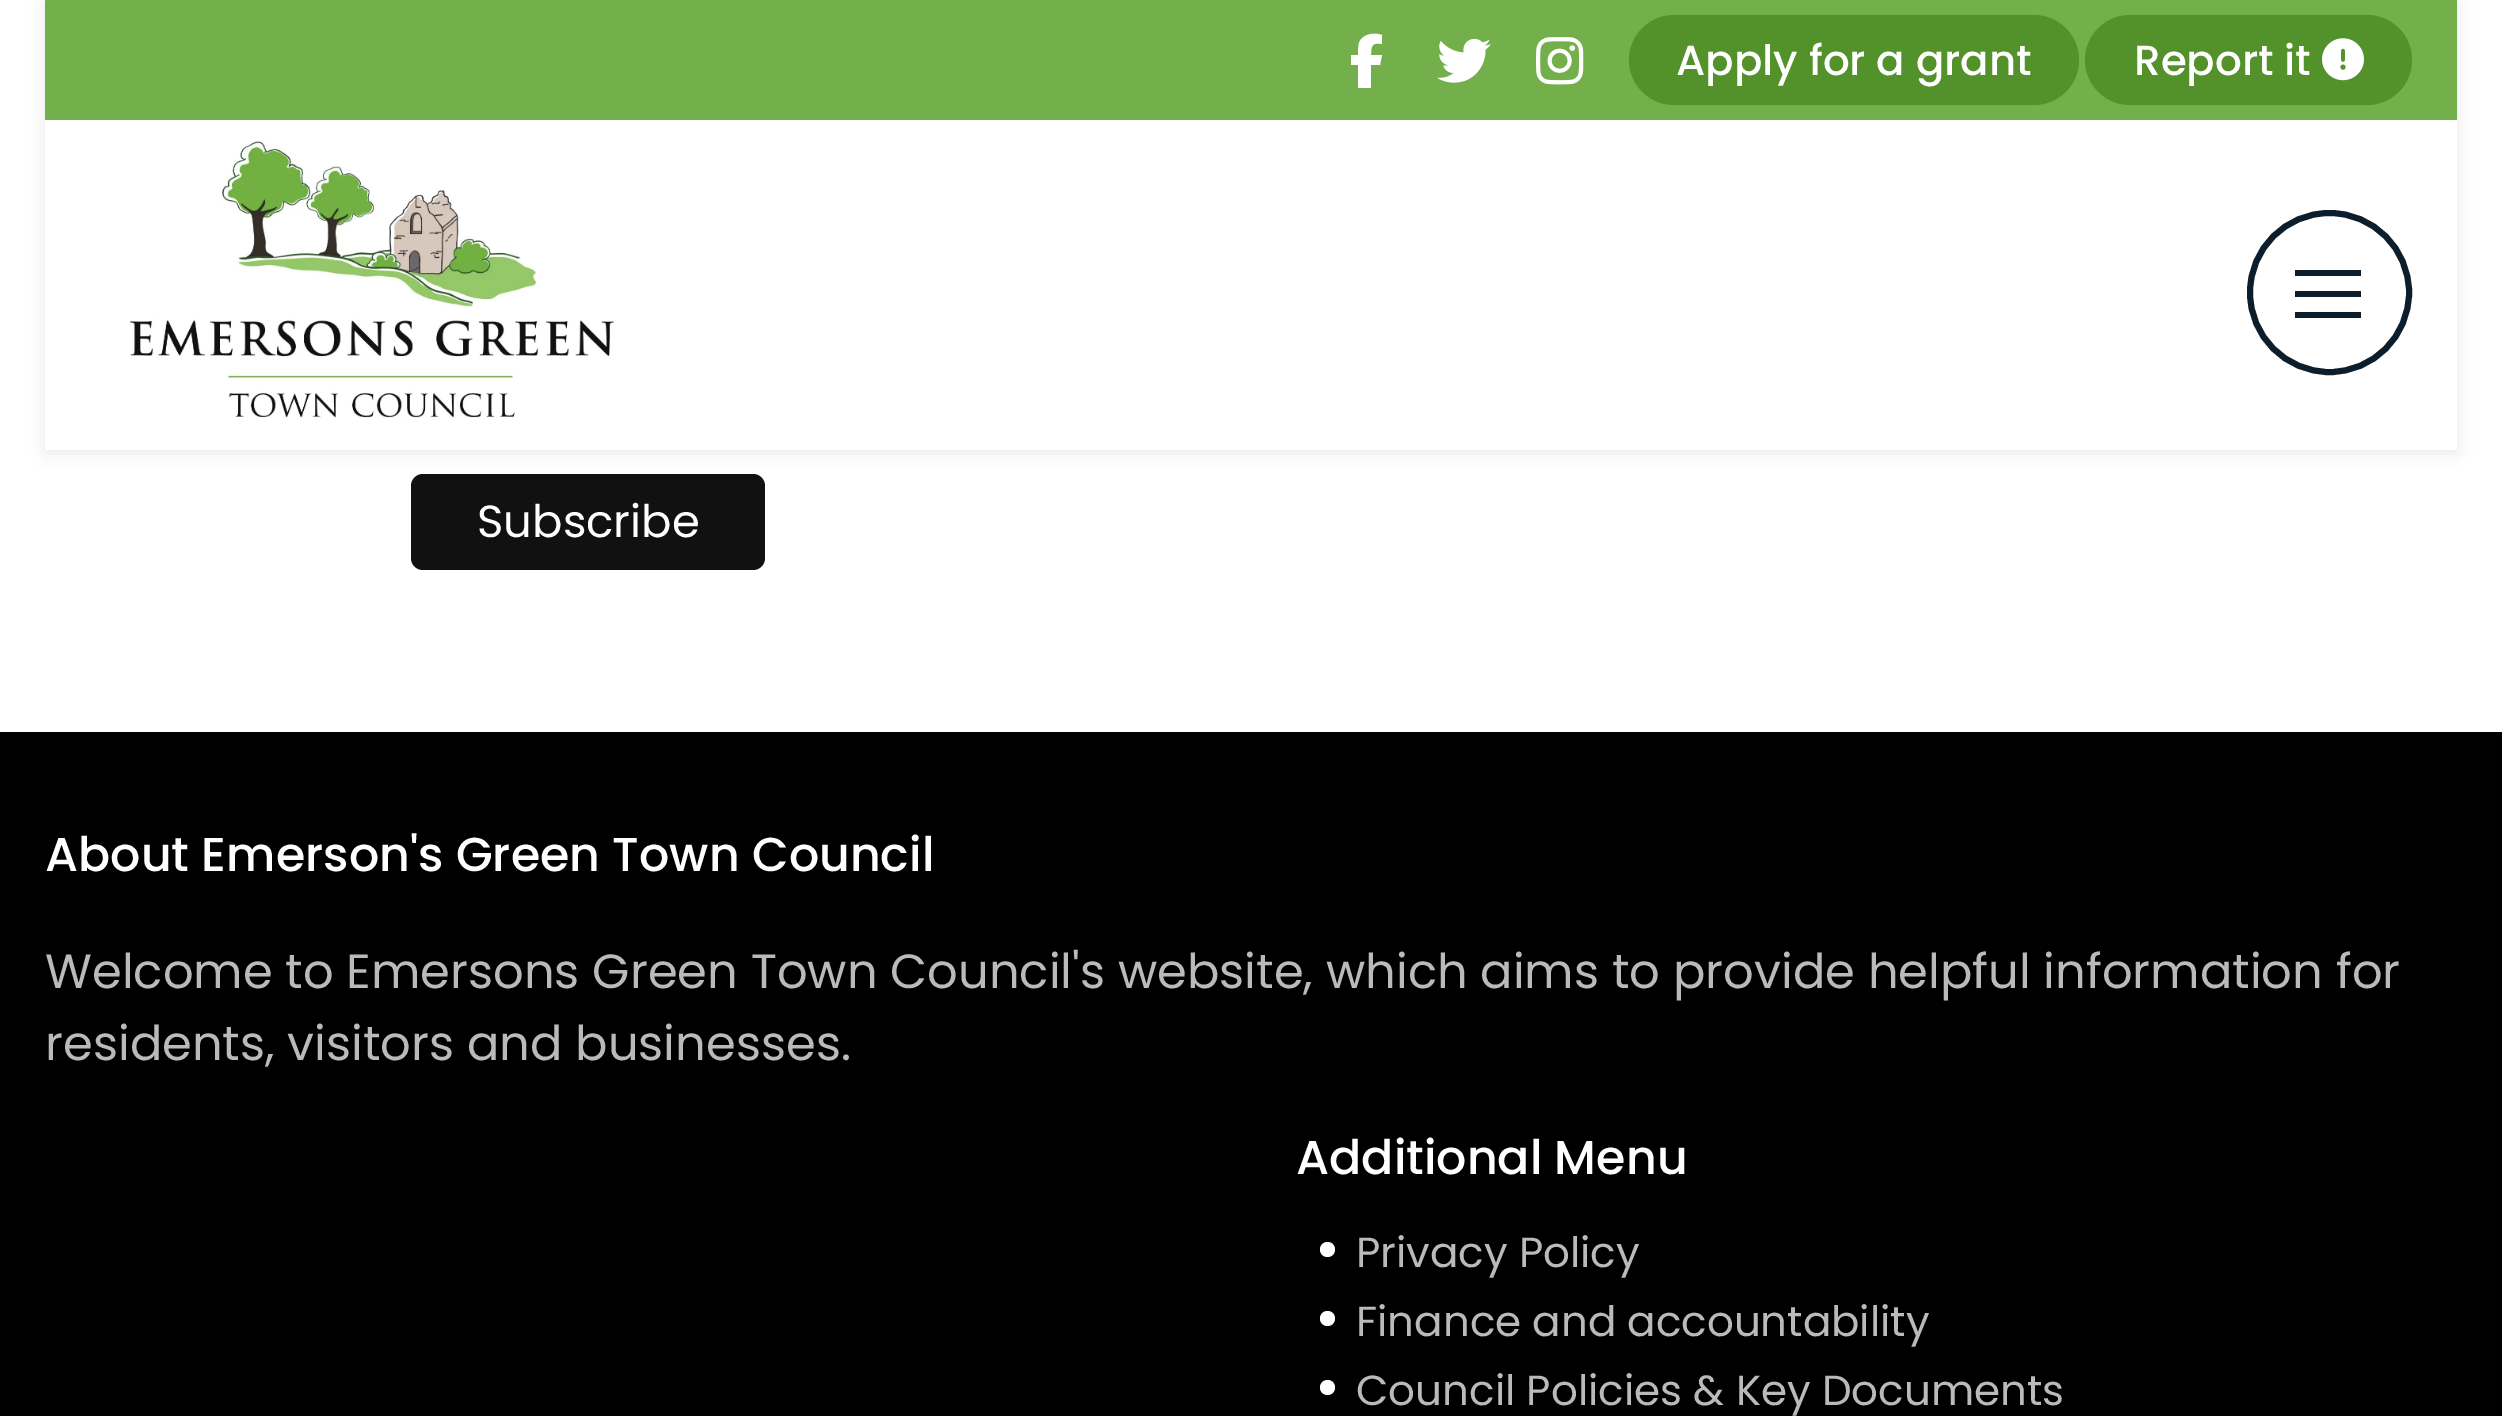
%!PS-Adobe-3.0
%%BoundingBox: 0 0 2502 1416
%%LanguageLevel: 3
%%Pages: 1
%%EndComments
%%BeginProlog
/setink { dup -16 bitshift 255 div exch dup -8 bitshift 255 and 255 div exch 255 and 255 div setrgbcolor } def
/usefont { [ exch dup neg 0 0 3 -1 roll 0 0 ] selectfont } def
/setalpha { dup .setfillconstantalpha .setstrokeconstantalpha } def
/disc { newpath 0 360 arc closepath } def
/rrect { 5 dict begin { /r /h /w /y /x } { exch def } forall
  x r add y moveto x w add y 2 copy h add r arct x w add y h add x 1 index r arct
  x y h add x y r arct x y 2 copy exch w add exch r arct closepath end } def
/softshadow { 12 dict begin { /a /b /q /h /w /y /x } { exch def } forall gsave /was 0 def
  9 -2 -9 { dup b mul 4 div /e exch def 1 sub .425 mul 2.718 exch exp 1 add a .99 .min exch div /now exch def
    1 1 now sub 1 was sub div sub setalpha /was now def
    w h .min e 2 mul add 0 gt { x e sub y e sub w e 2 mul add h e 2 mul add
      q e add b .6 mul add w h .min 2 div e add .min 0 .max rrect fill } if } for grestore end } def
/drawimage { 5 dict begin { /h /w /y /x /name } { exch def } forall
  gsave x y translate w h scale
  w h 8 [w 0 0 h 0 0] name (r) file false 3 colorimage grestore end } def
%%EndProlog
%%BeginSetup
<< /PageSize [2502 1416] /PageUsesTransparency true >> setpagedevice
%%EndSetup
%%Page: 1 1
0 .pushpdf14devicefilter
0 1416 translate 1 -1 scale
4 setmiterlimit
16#FFFFFF setink
0 0 2502 1416 rectfill
16#111111 setink
411 474 354 96 12 rrect fill
gsave
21 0 moveto 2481 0 lineto 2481 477 lineto 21 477 lineto closepath 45 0 moveto 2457 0 lineto 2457 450 lineto 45 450 lineto closepath eoclip newpath
16#272D3F setink
45 3 2412 450 0 7.5 0.1 softshadow
grestore
16#73B04B setink
45 0 2412 120 rectfill
16#FFFFFF setink
1358 65 moveto 1358 88 lineto 1358 65 lineto 1358 88 lineto 1371 88 lineto 1371 65 lineto 1380 65 lineto 1382 55 lineto 1371 55 lineto 1371 46 1372 42 1382 44 curveto 1382 35 lineto 1374 32 1362 34 1359 43 curveto 1358 47 1358 51 1358 55 curveto 1351 55 lineto 1351 65 lineto closepath fill
(img1.raw) 1437 38 54 45 drawimage
(img2.raw) 1536 37 48 48 drawimage
16#53912A setink
1629 15 450 90 45 rrect fill
/Poppins-Medium 42 usefont
16#FFFFFF setink
1676 75 moveto (Apply for a grant) show
16#53912A setink
2085 15 327 90 45 rrect fill
16#FFFFFF setink
2134 75 moveto (Report it) show
(img3.raw) 2322 38 42 43 drawimage
(img4.raw) 129 141 485 277 drawimage
16#0C1D2B setink
6 setlinewidth
2329.5 292.5 79.5 disc stroke
[
    [2295 270 66 6 16#0C1D2B]
    [2295 291 66 6 16#0C1D2B]
    [2295 312 66 6 16#0C1D2B]
] { aload pop setink rectfill } forall
/Poppins-Regular 45 usefont
16#FFFFFF setink
477 537 moveto (Subscribe) show
16#000000 setink
0 732 2502 684 rectfill
/Poppins-Medium 47.5 usefont
16#FFFFFF setink
45 871 moveto (About Emerson's Green Town Council) show
/Poppins-Regular 48 usefont
16#BABABA setink
45 988 moveto (Welcome to Emersons Green Town Council's website, which aims to provide helpful information for) show
45 1060 moveto (residents, visitors and businesses.) show
/Poppins-Medium 47.5 usefont
16#FFFFFF setink
1296 1174 moveto (Additional Menu) show
1327.5 1249.5 7.5 disc fill
/Poppins-Regular 42 usefont
16#BABABA setink
1356 1267 moveto (Privacy Policy) show
16#FFFFFF setink
1327.5 1318.5 7.5 disc fill
16#BABABA setink
1356 1336 moveto (Finance and accountability) show
16#FFFFFF setink
1327.5 1387.5 7.5 disc fill
16#BABABA setink
1356 1405 moveto (Council Policies & Key Documents) show
.poppdf14devicefilter showpage
%%EOF
